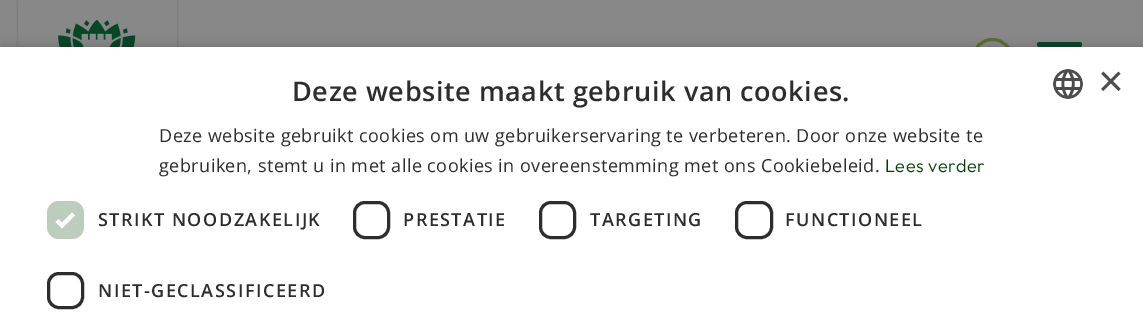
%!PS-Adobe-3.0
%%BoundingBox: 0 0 1143 313
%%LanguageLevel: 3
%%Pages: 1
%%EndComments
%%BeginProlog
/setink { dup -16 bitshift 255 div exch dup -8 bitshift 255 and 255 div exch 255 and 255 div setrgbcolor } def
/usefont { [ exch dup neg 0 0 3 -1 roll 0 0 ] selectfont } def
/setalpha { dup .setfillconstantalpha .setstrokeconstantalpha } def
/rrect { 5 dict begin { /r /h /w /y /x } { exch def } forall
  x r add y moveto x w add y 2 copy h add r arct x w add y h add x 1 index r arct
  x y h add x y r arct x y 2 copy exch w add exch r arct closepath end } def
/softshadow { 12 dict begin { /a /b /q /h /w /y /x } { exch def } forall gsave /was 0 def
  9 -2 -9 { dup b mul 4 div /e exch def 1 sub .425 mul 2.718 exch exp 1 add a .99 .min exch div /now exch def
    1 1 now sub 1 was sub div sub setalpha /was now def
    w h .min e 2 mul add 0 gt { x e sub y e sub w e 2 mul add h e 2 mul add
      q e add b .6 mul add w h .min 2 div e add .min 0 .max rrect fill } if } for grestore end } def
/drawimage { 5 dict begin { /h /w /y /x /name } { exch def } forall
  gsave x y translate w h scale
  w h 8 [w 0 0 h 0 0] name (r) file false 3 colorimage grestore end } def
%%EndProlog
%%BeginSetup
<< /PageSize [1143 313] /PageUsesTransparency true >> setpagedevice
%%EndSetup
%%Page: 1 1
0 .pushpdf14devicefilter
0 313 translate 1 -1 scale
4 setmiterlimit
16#888888 setink
0 0 1143 313 rectfill
(img1.raw) 16 0 163 47 drawimage
(img2.raw) 58 20 78 27 drawimage
16#094528 setink
1037 42 45 5 2.5 rrect fill
16#5B6D35 setink
3 setlinewidth
973.5 39.5 38 37 18.5 rrect stroke
(img3.raw) 988 46 2 1 drawimage
16#000000 setink
2 50 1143 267 0 6 0.35 softshadow
16#FFFFFF setink
0 47 1143 266 rectfill
/OpenSans-SemiBold 27 usefont
16#2D2D2D setink
292 101 moveto 0.6 0 (Deze website maakt gebruik van cookies.) ashow
(img4.raw) 1053 69 30 30 drawimage
/LiberationSans-Regular 44 usefont
16#4D4D4D setink
1098 96 moveto (×) show
/OpenSans-Regular 18 usefont
16#2D2D2D setink
159 142 moveto 0.45 0 (Deze website gebruikt cookies om uw gebruikerservaring te verbeteren. Door onze website te) ashow
159 172 moveto 0.45 0 (gebruiken, stemt u in met alle cookies in overeenstemming met ons Cookiebeleid.) ashow
/Outfit-Thin 18 usefont
16#003E02 setink
885 172 moveto 0.45 0 (Lees verder) ashow
16#BDCDBD setink
47 201 37 38 12 rrect fill
16#FFFFFF setink
3.9 setlinewidth
57 220.5 moveto 62 225.5 lineto 73.5 214 lineto stroke
/OpenSans-SemiBold 18 usefont
16#2D2D2D setink
98 226 moveto 1.5 0 (STRIKT NOODZAKELIJK) ashow
3 setlinewidth
354.5 202.5 34 35 10.5 rrect stroke
403 226 moveto 1.5 0 (PRESTATIE) ashow
540.5 202.5 34 35 10.5 rrect stroke
590 226 moveto 1.5 0 (TARGETING) ashow
736.5 202.5 35 35 10.5 rrect stroke
785 226 moveto 1.5 0 (FUNCTIONEEL) ashow
48.5 273.5 34 34 10.5 rrect stroke
98 297 moveto 1.5 0 (NIET-GECLASSIFICEERD) ashow
.poppdf14devicefilter showpage
%%EOF
